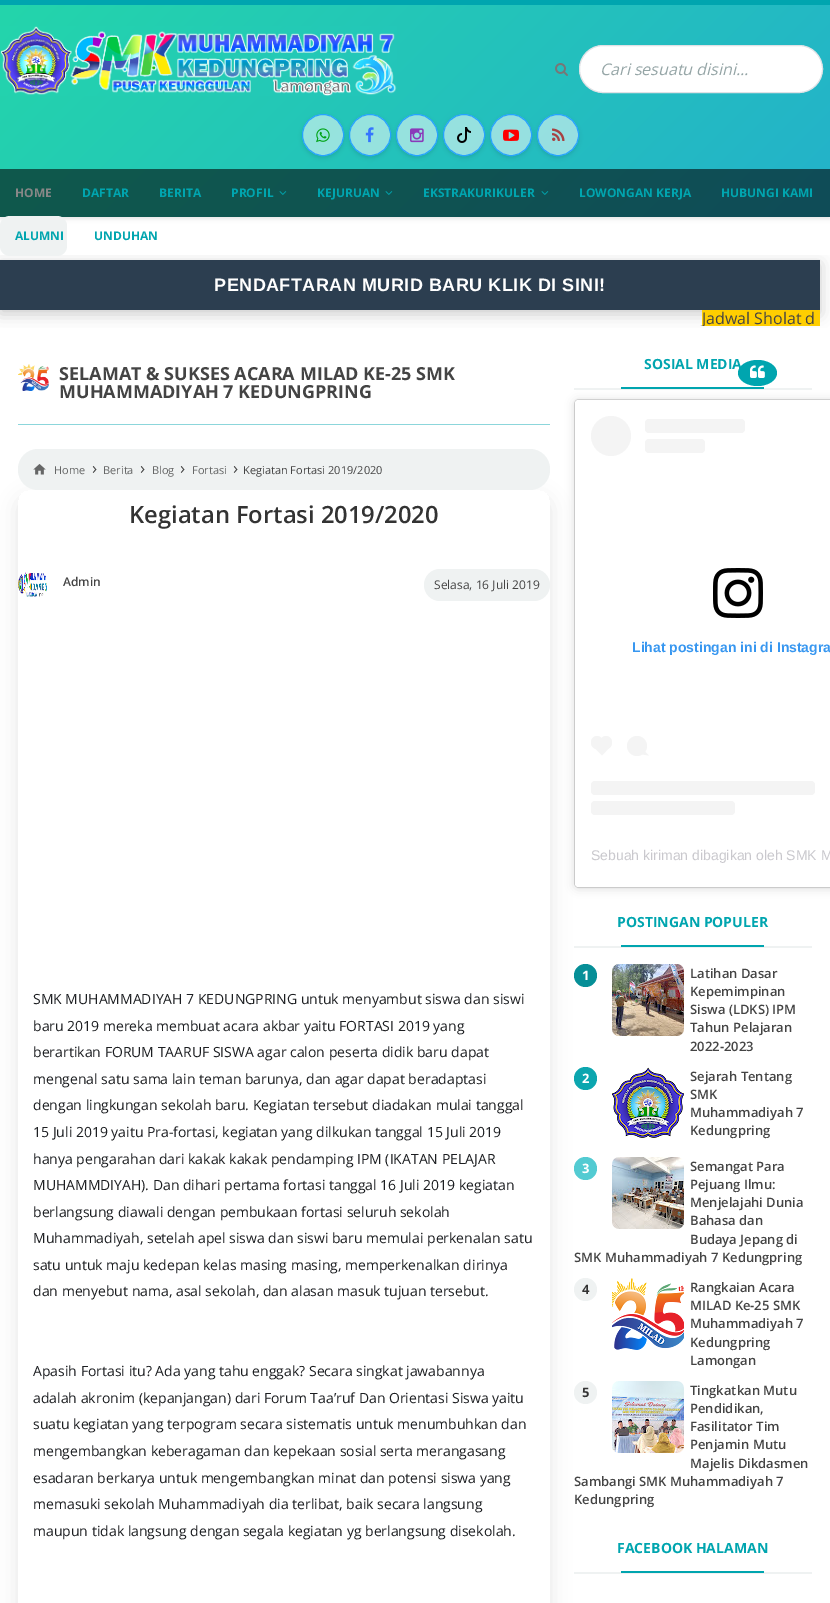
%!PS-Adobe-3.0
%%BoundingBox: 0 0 830 1603
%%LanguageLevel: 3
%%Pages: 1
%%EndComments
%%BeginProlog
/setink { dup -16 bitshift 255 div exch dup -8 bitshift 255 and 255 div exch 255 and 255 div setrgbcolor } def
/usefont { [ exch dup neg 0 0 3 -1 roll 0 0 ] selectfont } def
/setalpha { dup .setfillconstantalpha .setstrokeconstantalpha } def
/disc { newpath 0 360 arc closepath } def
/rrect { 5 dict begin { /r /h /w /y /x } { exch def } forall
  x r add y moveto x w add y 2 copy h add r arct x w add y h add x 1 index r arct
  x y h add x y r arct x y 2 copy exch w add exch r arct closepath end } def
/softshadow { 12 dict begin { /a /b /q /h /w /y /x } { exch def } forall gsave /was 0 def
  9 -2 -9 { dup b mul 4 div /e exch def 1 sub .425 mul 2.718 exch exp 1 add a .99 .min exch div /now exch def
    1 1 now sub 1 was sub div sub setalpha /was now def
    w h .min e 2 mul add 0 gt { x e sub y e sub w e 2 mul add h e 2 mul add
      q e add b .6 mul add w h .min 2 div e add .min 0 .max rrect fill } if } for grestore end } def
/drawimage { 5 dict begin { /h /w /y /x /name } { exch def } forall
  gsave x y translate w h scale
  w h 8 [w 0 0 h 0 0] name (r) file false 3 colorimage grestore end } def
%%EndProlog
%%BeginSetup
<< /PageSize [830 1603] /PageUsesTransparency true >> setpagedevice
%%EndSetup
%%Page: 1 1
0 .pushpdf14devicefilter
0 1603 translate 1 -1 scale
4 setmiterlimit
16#FFFFFF setink
0 0 830 1603 rectfill
16#000000 setink
0 2 830 217 0 2 0.1 softshadow
gsave 0 5 moveto 830 5 lineto 830 169 lineto 0 169 lineto closepath clip newpath
<< /ShadingType 2 /ColorSpace /DeviceRGB /Coords [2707 1481 613 -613] /Extend [true true] /Function << /FunctionType 3 /Domain [0 1] /Functions [<< /FunctionType 2 /Domain [0 1] /C0 [0.933 0.467 0.322] /C1 [0.906 0.235 0.494] /N 1 >> << /FunctionType 2 /Domain [0 1] /C0 [0.906 0.235 0.494] /C1 [0.137 0.651 0.835] /N 1 >> << /FunctionType 2 /Domain [0 1] /C0 [0.137 0.651 0.835] /C1 [0.137 0.835 0.671] /N 1 >>] /Bounds [0.33 0.67] /Encode [0 1 0 1 0 1] >> >> shfill grestore
gsave 0 169 moveto 830 169 lineto 830 217 lineto 0 217 lineto closepath clip newpath
<< /ShadingType 2 /ColorSpace /DeviceRGB /Coords [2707 1481 613 -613] /Extend [true true] /Function << /FunctionType 3 /Domain [0 1] /Functions [<< /FunctionType 2 /Domain [0 1] /C0 [0.4 0.2 0.137] /C1 [0.388 0.102 0.212] /N 1 >> << /FunctionType 2 /Domain [0 1] /C0 [0.388 0.102 0.212] /C1 [0.059 0.278 0.361] /N 1 >> << /FunctionType 2 /Domain [0 1] /C0 [0.059 0.278 0.361] /C1 [0.059 0.361 0.29] /N 1 >>] /Bounds [0.33 0.67] /Encode [0 1 0 1 0 1] >> >> shfill grestore
16#00A5AF setink
0 0 830 5 rectfill
(img1.raw) 0 26 397 70 drawimage
(img2.raw) 555 63 13 13 drawimage
16#FFFFFF setink
579.5 45.5 243 47 23.5 rrect gsave fill grestore
16#DFE1E5 setink
stroke
/OpenSans-Italic 16 usefont
16#95A5A6 setink
600 75 moveto (Cari sesuatu disini...) show
gsave
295 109 moveto 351 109 lineto 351 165 lineto 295 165 lineto closepath 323 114 moveto 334.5 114 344 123.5 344 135 curveto 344 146.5 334.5 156 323 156 curveto 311.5 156 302 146.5 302 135 curveto 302 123.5 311.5 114 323 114 curveto closepath eoclip newpath
16#000000 setink
302 116 42 42 21 2 0.1 softshadow
grestore
0.52 setalpha
16#FFFFFF setink
323 135 20.5 disc fill
1 setalpha
16#26A3FF setink
323 135 20.5 disc stroke
(img3.raw) 316 128 14 15 drawimage
gsave
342 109 moveto 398 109 lineto 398 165 lineto 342 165 lineto closepath 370 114 moveto 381.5 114 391 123.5 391 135 curveto 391 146.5 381.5 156 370 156 curveto 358.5 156 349 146.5 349 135 curveto 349 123.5 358.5 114 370 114 curveto closepath eoclip newpath
16#000000 setink
349 116 42 42 21 2 0.1 softshadow
grestore
0.52 setalpha
16#FFFFFF setink
370 135 20.5 disc fill
1 setalpha
16#26A3FF setink
370 135 20.5 disc stroke
(img4.raw) 365 127 9 16 drawimage
gsave
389 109 moveto 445 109 lineto 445 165 lineto 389 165 lineto closepath 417 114 moveto 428.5 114 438 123.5 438 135 curveto 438 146.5 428.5 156 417 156 curveto 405.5 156 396 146.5 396 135 curveto 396 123.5 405.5 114 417 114 curveto closepath eoclip newpath
16#000000 setink
396 116 42 42 21 2 0.1 softshadow
grestore
0.52 setalpha
16#FFFFFF setink
417 135 20.5 disc fill
1 setalpha
16#26A3FF setink
417 135 20.5 disc stroke
(img5.raw) 410 128 14 15 drawimage
gsave
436 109 moveto 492 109 lineto 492 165 lineto 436 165 lineto closepath 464 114 moveto 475.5 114 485 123.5 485 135 curveto 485 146.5 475.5 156 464 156 curveto 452.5 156 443 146.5 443 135 curveto 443 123.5 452.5 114 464 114 curveto closepath eoclip newpath
16#000000 setink
443 116 42 42 21 2 0.1 softshadow
grestore
0.52 setalpha
16#FFFFFF setink
464 135 20.5 disc fill
1 setalpha
16#26A3FF setink
464 135 20.5 disc stroke
(img6.raw) 457 127 14 16 drawimage
gsave
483 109 moveto 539 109 lineto 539 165 lineto 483 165 lineto closepath 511 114 moveto 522.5 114 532 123.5 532 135 curveto 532 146.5 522.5 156 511 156 curveto 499.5 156 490 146.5 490 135 curveto 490 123.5 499.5 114 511 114 curveto closepath eoclip newpath
16#000000 setink
490 116 42 42 21 2 0.1 softshadow
grestore
0.52 setalpha
16#FFFFFF setink
511 135 20.5 disc fill
1 setalpha
16#26A3FF setink
511 135 20.5 disc stroke
(img7.raw) 503 129 16 12 drawimage
gsave
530 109 moveto 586 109 lineto 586 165 lineto 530 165 lineto closepath 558 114 moveto 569.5 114 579 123.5 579 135 curveto 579 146.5 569.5 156 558 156 curveto 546.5 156 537 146.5 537 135 curveto 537 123.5 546.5 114 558 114 curveto closepath eoclip newpath
16#000000 setink
537 116 42 42 21 2 0.1 softshadow
grestore
0.52 setalpha
16#FFFFFF setink
558 135 20.5 disc fill
1 setalpha
16#26A3FF setink
558 135 20.5 disc stroke
(img8.raw) 552 128 13 13 drawimage
/OpenSans-Bold 12 usefont
16#878787 setink
15 197 moveto (HOME) show
16#00A5AF setink
[
    [(DAFTAR) 82 197]
    [(BERITA) 159 197]
    [(PROFIL) 231 197]
] { aload pop moveto show } forall
(img9.raw) 279 191 8 4 drawimage
317 197 moveto (KEJURUAN) show
(img10.raw) 385 191 8 4 drawimage
423 197 moveto (EKSTRAKURIKULER) show
(img11.raw) 541 191 8 4 drawimage
579 197 moveto (LOWONGAN KERJA) show
721 197 moveto (HUBUNGI KAMI) show
gsave
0 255 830 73 rectclip
16#000000 setink
0 264 820 50 0 7.5 0.2 softshadow
grestore
16#EFF2F2 setink
0 216 67 40 10 rrect fill
16#00A5AF setink
15 240 moveto (ALUMNI) show
94 240 moveto (UNDUHAN) show
16#2C3E50 setink
0 260 820 50 rectfill
/LiberationSans-Bold 18 usefont
16#FFFFFF setink
214 291 moveto 0.5 0 (PENDAFTARAN MURID BARU KLIK DI SINI!) ashow
16#FFCE00 setink
702 310 118 16 rectfill
gsave
0 310 820 16 rectclip
/OpenSans-Regular 16 usefont
16#444444 setink
702 324 moveto (Jadwal Sholat d) show
grestore
(img12.raw) 18 364 31 27 drawimage
/OpenSans-Bold 18 usefont
16#444444 setink
59 380 moveto (SELAMAT & SUKSES ACARA MILAD KE-25 SMK) show
59 398 moveto (MUHAMMADIYAH 7 KEDUNGPRING) show
16#8CD6DB setink
18 424 532 1 rectfill
gsave
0 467 moveto 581 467 lineto 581 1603 lineto 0 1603 lineto closepath 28 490 moveto 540 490 lineto 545.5 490 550 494.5 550 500 curveto 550 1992 lineto 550 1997.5 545.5 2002 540 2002 curveto 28 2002 lineto 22.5 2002 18 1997.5 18 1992 curveto 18 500 lineto 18 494.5 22.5 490 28 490 curveto closepath eoclip newpath
16#000000 setink
18 498 532 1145 10 10 0.1 softshadow
grestore
16#EFF2F2 setink
18 449 532 41 20 rrect fill
(img13.raw) 33 464 13 11 drawimage
/OpenSans-Regular 11 usefont
16#666767 setink
54 474 moveto (Home) show
/OpenSans-Regular 17 usefont
16#444444 setink
92 474 moveto (›) show
/OpenSans-Regular 11 usefont
16#666767 setink
103 474 moveto (Berita) show
/OpenSans-Regular 17 usefont
16#444444 setink
140 474 moveto (›) show
/OpenSans-Regular 11 usefont
16#666767 setink
152 474 moveto (Blog) show
/OpenSans-Regular 17 usefont
16#444444 setink
180 474 moveto (›) show
/OpenSans-Regular 11 usefont
16#666767 setink
192 474 moveto (Fortasi) show
/OpenSans-Regular 17 usefont
16#444444 setink
233 474 moveto (›) show
/OpenSans-Regular 11 usefont
243 474 moveto (Kegiatan Fortasi 2019/2020) show
/OpenSans-SemiBold 23.75 usefont
16#333333 setink
129 523 moveto (Kegiatan Fortasi 2019/2020) show
(img14.raw) 18 572 29 25 drawimage
/OpenSans-SemiBold 12 usefont
16#444444 setink
63 586 moveto (Admin) show
16#EFF2F2 setink
424 569 126 32 16 rrect fill
/OpenSans-Regular 12 usefont
16#444444 setink
434 589 moveto (Selasa, 16 Juli 2019) show
/OpenSans-Regular 14 usefont
16#1C1E21 setink
[
    [(SMK MUHAMMADIYAH 7 KEDUNGPRING untuk menyambut siswa dan siswi) 33 1004]
    [(baru 2019 mereka membuat acara akbar yaitu FORTASI 2019 yang) 33 1031]
    [(berartikan FORUM TAARUF SISWA agar calon peserta didik baru dapat) 33 1057]
    [(mengenal satu sama lain teman barunya, dan agar dapat beradaptasi) 33 1084]
    [(dengan lingkungan sekolah baru. Kegiatan tersebut diadakan mulai tanggal) 33 1110]
    [(15 Juli 2019 yaitu Pra-fortasi, kegiatan yang dilkukan tanggal 15 Juli 2019) 33 1137]
    [(hanya pengarahan dari kakak kakak pendamping IPM \(IKATAN PELAJAR) 33 1164]
    [(MUHAMMDIYAH\). Dan dihari pertama fortasi tanggal 16 Juli 2019 kegiatan) 33 1190]
    [(berlangsung diawali dengan pembukaan fortasi seluruh sekolah) 33 1217]
    [(Muhammadiyah, setelah apel siswa dan siswi baru memulai perkenalan satu) 33 1243]
    [(satu untuk maju kedepan kelas masing masing, memperkenalkan dirinya) 33 1270]
    [(dan menyebut nama, asal sekolah, dan alasan masuk tujuan tersebut.) 33 1296]
    [(Apasih Fortasi itu? Ada yang tahu enggak? Secara singkat jawabannya) 33 1376]
    [(adalah akronim \(kepanjangan\) dari Forum Taa’ruf Dan Orientasi Siswa yaitu) 33 1403]
    [(suatu kegiatan yang terpogram secara sistematis untuk menumbuhkan dan) 33 1429]
    [(mengembangkan keberagaman dan kepekaan sosial serta merangasang) 33 1456]
    [(esadaran berkarya untuk mengembangkan minat dan potensi siswa yang) 33 1483]
    [(memasuki sekolah Muhammadiyah dia terlibat, baik secara langsung) 33 1509]
    [(maupun tidak langsung dengan segala kegiatan yg berlangsung disekolah.) 33 1536]
] { aload pop moveto show } forall
16#000000 setink
575 401 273 487 3 5 0.15 softshadow
16#EFF2F2 setink
574 388 238 2 rectfill
/OpenSans-Bold 14 usefont
16#00A5AF setink
644 369 moveto (SOSIAL MEDIA) show
621 387 143 2 rectfill
16#000000 setink
575 400 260 487 3 0.5 0.5 softshadow
16#FFFFFF setink
578 400 moveto 830 400 lineto 830 887 lineto 578 887 lineto 576.5 887 575 885.5 575 884 curveto 575 403 lineto 575 401.5 576.5 400 578 400 curveto closepath fill
16#00A5AF setink
757.5 360 moveto 768.5 360 777 366 777 373 curveto 777 380 768.5 386 757.5 386 curveto 746.5 386 738 380 738 373 curveto 738 366 746.5 360 757.5 360 curveto closepath fill
(img15.raw) 750 365 15 13 drawimage
16#F4F4F4 setink
611 436 20 disc fill
645 419 100 14 4 rrect fill
645 439 60 14 4 rrect fill
(img16.raw) 713 568 50 50 drawimage
/LiberationSans-Bold 14 usefont
16#3897F0 setink
632 652 moveto (Lihat postingan ini di Instagra) show
16#F4F4F4 setink
591 736 12 13 6 rrect fill
593 746.5 moveto 602 738 lineto 610.5 746.5 lineto 602 755.5 lineto closepath fill
600 736 12 13 6 rrect fill
637 746 10 disc fill
642.5 754.5 moveto 644.5 751 lineto 649 755.5 lineto closepath fill
591 781 224 14 4 rrect fill
591 801 144 14 4 rrect fill
/LiberationSans-Regular 14 usefont
16#C9C8CD setink
591 860 moveto (Sebuah kiriman dibagikan oleh SMK M) show
16#EFF2F2 setink
574 946 238 2 rectfill
/OpenSans-Bold 14 usefont
16#00A5AF setink
617 927 moveto (POSTINGAN POPULER) show
621 945 143 2 rectfill
16#068F97 setink
585.5 975.5 11.5 disc fill
/OpenSans-Bold 13 usefont
16#FFFFFF setink
582 980 moveto (1) show
(img17.raw) 612 964 72 72 drawimage
/OpenSans-SemiBold 13 usefont
16#444444 setink
[
    [(Latihan Dasar) 690 978]
    [(Kepemimpinan) 690 996]
    [(Siswa \(LDKS\) IPM) 690 1014]
    [(Tahun Pelajaran) 690 1032]
    [(2022-2023) 690 1051]
] { aload pop moveto show } forall
16#0CA6AF setink
585.5 1078.5 11.5 disc fill
/OpenSans-Bold 13 usefont
16#FFFFFF setink
582 1083 moveto (2) show
(img18.raw) 612 1067 72 71 drawimage
/OpenSans-SemiBold 13 usefont
16#444444 setink
[
    [(Sejarah Tentang) 690 1081]
    [(SMK) 690 1099]
    [(Muhammadiyah 7) 690 1117]
    [(Kedungpring) 690 1135]
] { aload pop moveto show } forall
(img19.raw) 612 1157 72 72 drawimage
[
    [(Semangat Para) 690 1171]
    [(Pejuang Ilmu:) 690 1189]
    [(Menjelajahi Dunia) 690 1207]
    [(Bahasa dan) 690 1225]
    [(Budaya Jepang di) 690 1244]
    [(SMK Muhammadiyah 7 Kedungpring) 574 1262]
] { aload pop moveto show } forall
16#53CBD2 setink
585.5 1168.5 11.5 disc fill
/OpenSans-Bold 13 usefont
16#FFFFFF setink
582 1173 moveto (3) show
16#EFF2F2 setink
585.5 1289.5 11.5 disc fill
16#333333 setink
582 1294 moveto (4) show
(img20.raw) 612 1278 72 72 drawimage
/OpenSans-SemiBold 13 usefont
16#444444 setink
[
    [(Rangkaian Acara) 690 1292]
    [(MILAD Ke-25 SMK) 690 1310]
    [(Muhammadiyah 7) 690 1328]
    [(Kedungpring) 690 1347]
    [(Lamongan) 690 1365]
] { aload pop moveto show } forall
(img21.raw) 612 1381 72 72 drawimage
[
    [(Tingkatkan Mutu) 690 1395]
    [(Pendidikan,) 690 1413]
    [(Fasilitator Tim) 690 1431]
    [(Penjamin Mutu) 690 1449]
    [(Majelis Dikdasmen) 690 1468]
    [(Sambangi SMK Muhammadiyah 7) 574 1486]
    [(Kedungpring) 574 1504]
] { aload pop moveto show } forall
16#EFF2F2 setink
585.5 1392.5 11.5 disc fill
/OpenSans-Bold 13 usefont
16#333333 setink
582 1397 moveto (5) show
16#EFF2F2 setink
574 1572 238 2 rectfill
/OpenSans-Bold 14 usefont
16#00A5AF setink
617 1553 moveto (FACEBOOK HALAMAN) show
621 1571 143 2 rectfill
.poppdf14devicefilter showpage
%%EOF
